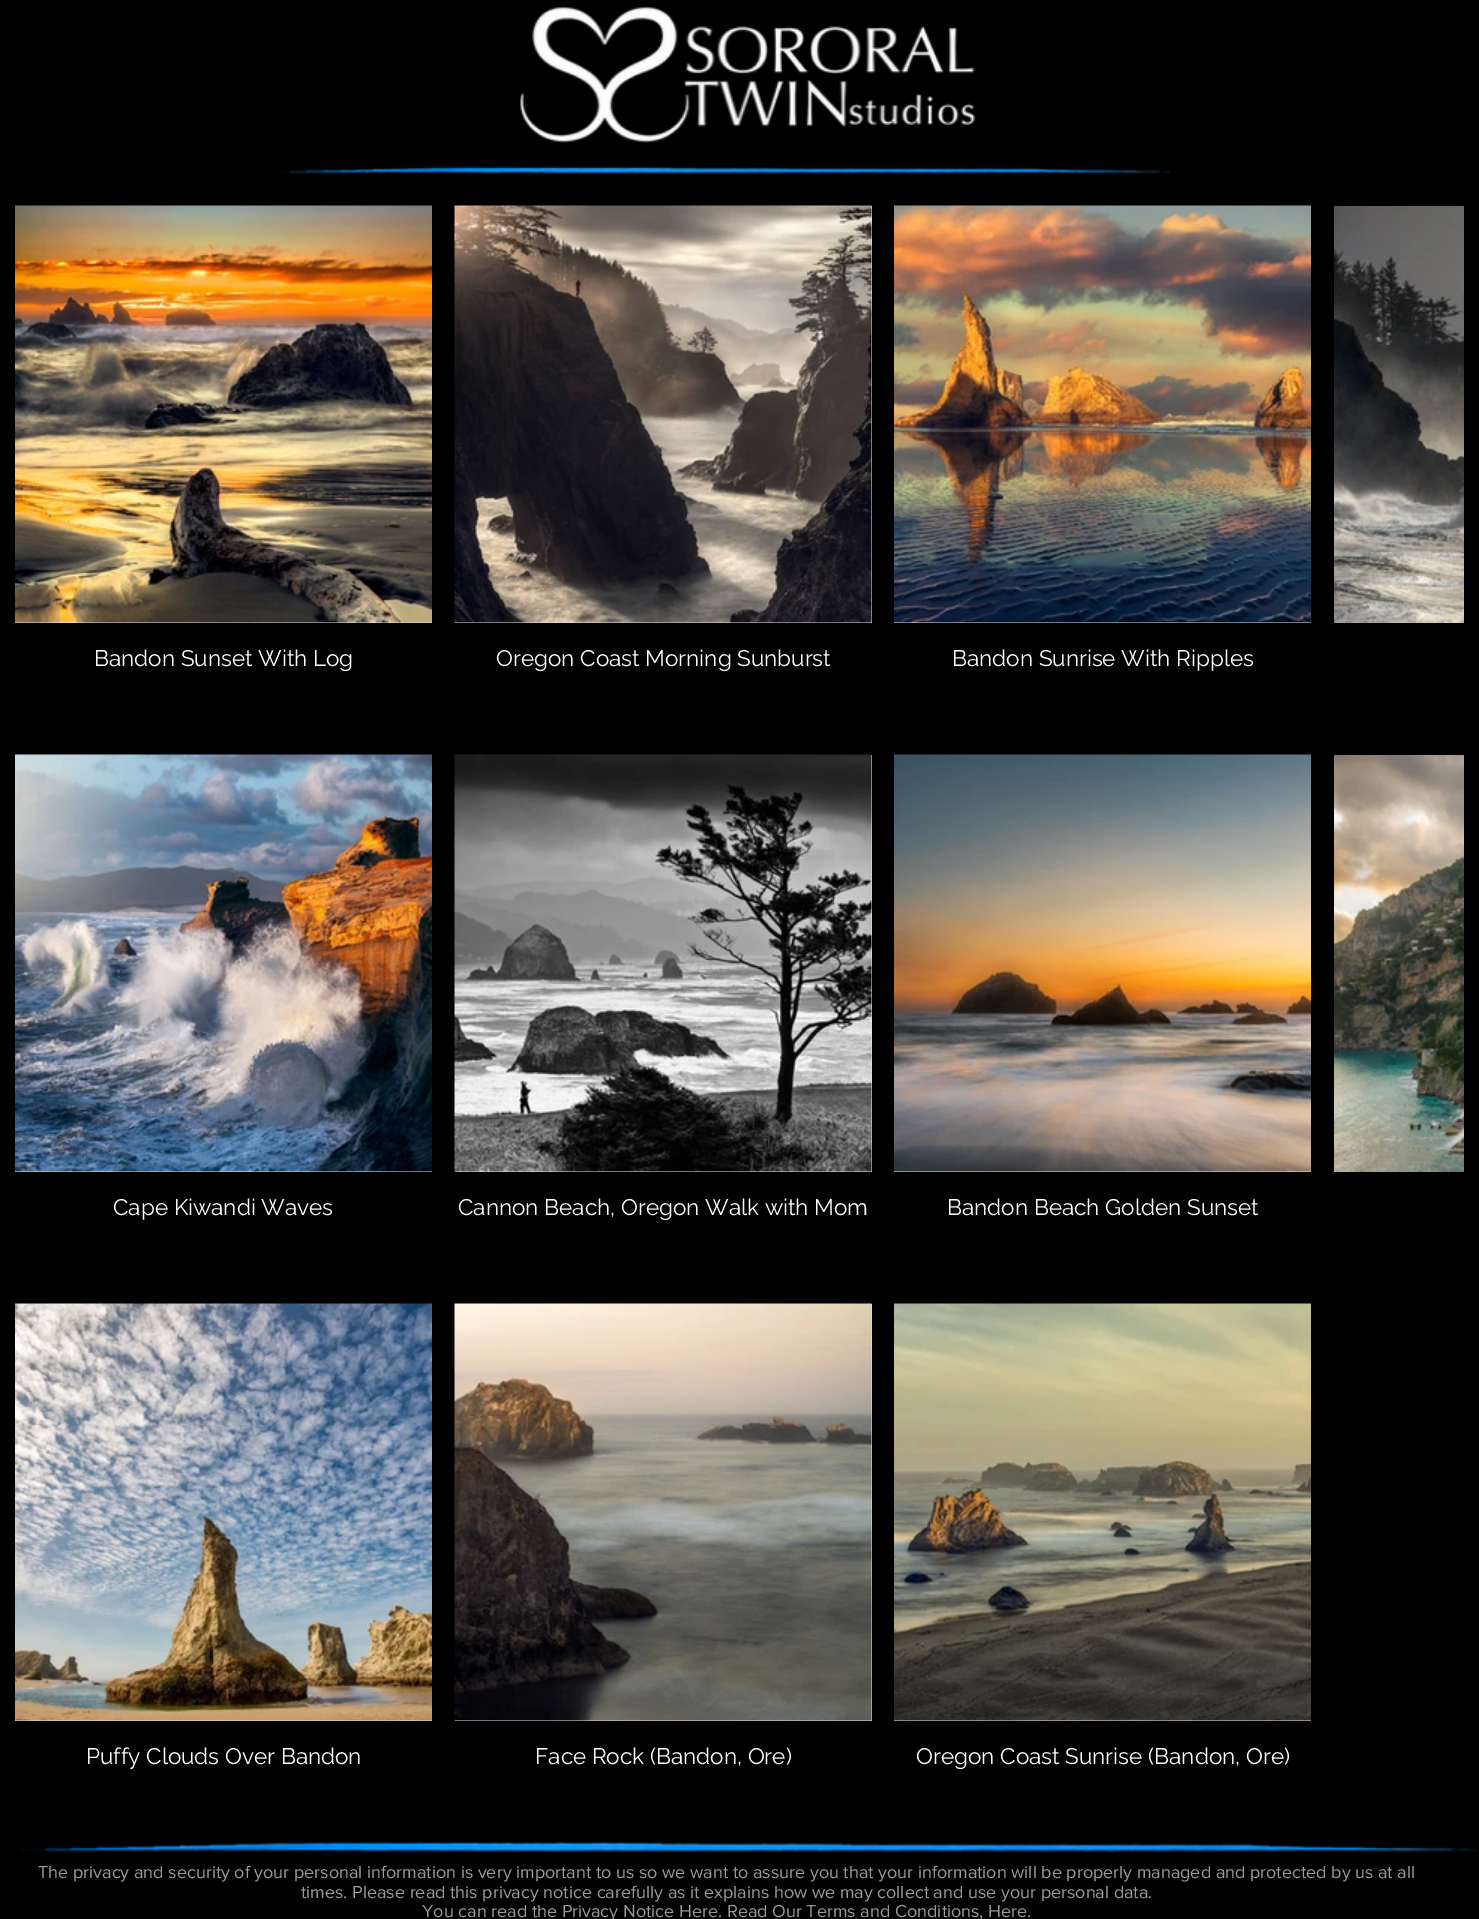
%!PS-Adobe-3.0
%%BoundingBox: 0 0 1479 1919
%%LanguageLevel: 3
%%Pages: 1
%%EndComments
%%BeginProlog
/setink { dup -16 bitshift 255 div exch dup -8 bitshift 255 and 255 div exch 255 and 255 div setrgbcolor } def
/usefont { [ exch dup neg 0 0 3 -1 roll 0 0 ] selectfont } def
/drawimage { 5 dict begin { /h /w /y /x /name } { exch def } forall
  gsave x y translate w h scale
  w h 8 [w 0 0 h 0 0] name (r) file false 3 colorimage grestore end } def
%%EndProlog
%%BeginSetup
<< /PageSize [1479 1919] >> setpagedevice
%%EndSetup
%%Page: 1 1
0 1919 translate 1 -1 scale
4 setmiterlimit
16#000000 setink
0 0 1479 1919 rectfill
(img1.raw) 520 6 457 137 drawimage
(img2.raw) 274 166 896 9 drawimage
(img3.raw) 1334 206 130 417 drawimage
16#E8E6E6 setink
15 622 417 1 rectfill
(img4.raw) 15 205 417 418 drawimage
/Raleway-Regular 22.5 usefont
16#FFFFFF setink
94 666 moveto (Bandon Sunset With Log) show
16#E8E6E6 setink
455 206 417 417 rectfill
(img5.raw) 454 205 418 418 drawimage
16#FFFFFF setink
496 666 moveto (Oregon Coast Morning Sunburst) show
16#E8E6E6 setink
894 622 417 1 rectfill
(img6.raw) 894 205 417 418 drawimage
16#FFFFFF setink
952 666 moveto (Bandon Sunrise With Ripples) show
(img7.raw) 1334 755 130 417 drawimage
16#E8E6E6 setink
15 1171 417 1 rectfill
(img8.raw) 15 754 417 418 drawimage
16#FFFFFF setink
113 1215 moveto (Cape Kiwandi Waves) show
16#E8E6E6 setink
455 755 417 417 rectfill
(img9.raw) 454 754 418 418 drawimage
16#FFFFFF setink
458 1215 moveto (Cannon Beach, Oregon Walk with Mom) show
16#E8E6E6 setink
894 1171 417 1 rectfill
(img10.raw) 894 754 417 418 drawimage
16#FFFFFF setink
947 1215 moveto (Bandon Beach Golden Sunset) show
16#E8E6E6 setink
15 1720 417 1 rectfill
(img11.raw) 15 1303 417 418 drawimage
16#FFFFFF setink
86 1764 moveto (Puffy Clouds Over Bandon) show
16#E8E6E6 setink
455 1304 417 417 rectfill
(img12.raw) 454 1303 418 418 drawimage
16#FFFFFF setink
535 1764 moveto (Face Rock \(Bandon, Ore\)) show
16#E8E6E6 setink
894 1720 417 1 rectfill
(img13.raw) 894 1303 417 418 drawimage
16#FFFFFF setink
916 1764 moveto (Oregon Coast Sunrise \(Bandon, Ore\)) show
(img14.raw) 19 1841 1458 16 drawimage
/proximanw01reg-Regular 18 usefont
16#999997 setink
[
    [(The privacy and security of your personal information is very important to us so we want to assure you that your information will be properly managed and protected by us at all) 38 1878]
    [(times. Please read this privacy notice carefully as it explains how we may collect and use your personal data.) 301 1898]
    [(You can read the Privacy Notice Here. Read Our Terms and Conditions, Here.) 422 1917]
] { aload pop moveto show } forall
showpage
%%EOF
